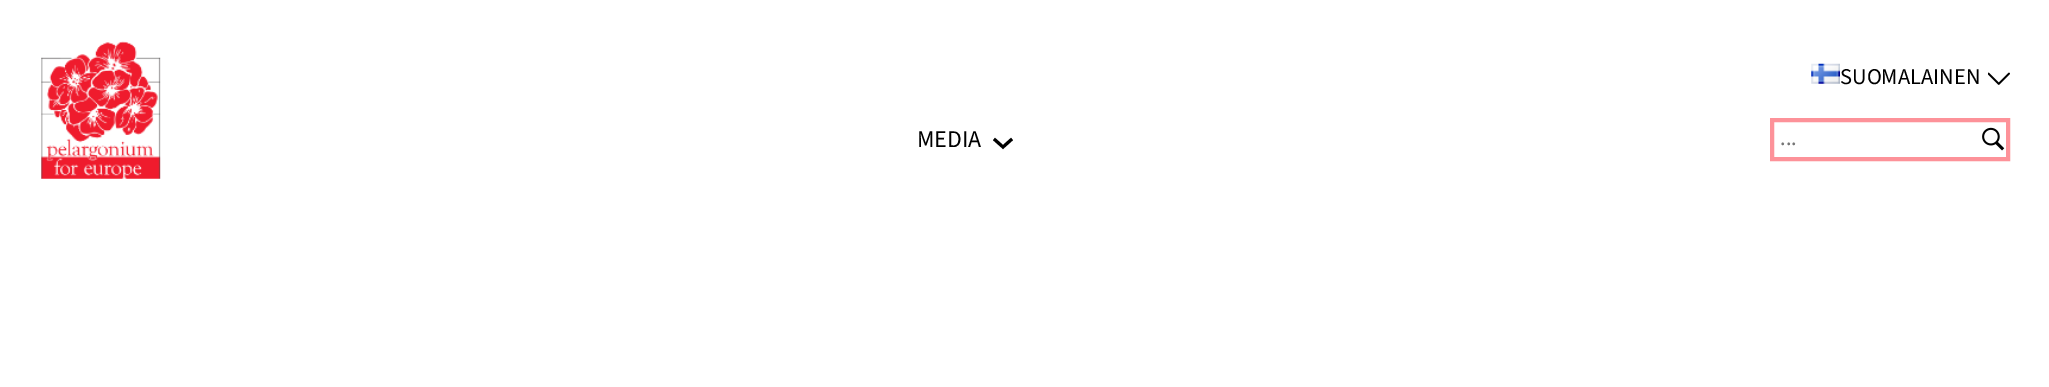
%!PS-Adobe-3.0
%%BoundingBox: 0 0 2049 387
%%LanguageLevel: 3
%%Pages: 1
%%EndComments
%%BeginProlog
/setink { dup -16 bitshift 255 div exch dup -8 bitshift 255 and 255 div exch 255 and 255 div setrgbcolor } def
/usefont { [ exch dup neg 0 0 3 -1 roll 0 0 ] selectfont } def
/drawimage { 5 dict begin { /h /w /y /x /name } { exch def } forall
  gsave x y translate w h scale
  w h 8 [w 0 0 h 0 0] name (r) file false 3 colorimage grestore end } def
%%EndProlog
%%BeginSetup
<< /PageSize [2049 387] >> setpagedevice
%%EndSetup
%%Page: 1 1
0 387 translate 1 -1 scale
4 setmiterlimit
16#FFFFFF setink
0 0 2049 387 rectfill
(img1.raw) 1988 72 22 13 drawimage
(img2.raw) 1811 63 29 21 drawimage
/SourceSans3-Regular 22.5 usefont
16#000000 setink
1840 84 moveto (SUOMALAINEN) show
(img3.raw) 41 41 120 138 drawimage
/SourceSans3-Regular 24 usefont
917 147 moveto (MEDIA) show
3 setlinewidth
994 139 moveto 1003 147 lineto 1012 139 lineto stroke
(img4.raw) 1982 127 23 24 drawimage
16#FD9299 setink
4 setlinewidth
1772 120 236 39 rectstroke
/SourceSans3-Regular 22.5 usefont
16#757575 setink
1780 145 moveto (...) show
showpage
%%EOF
